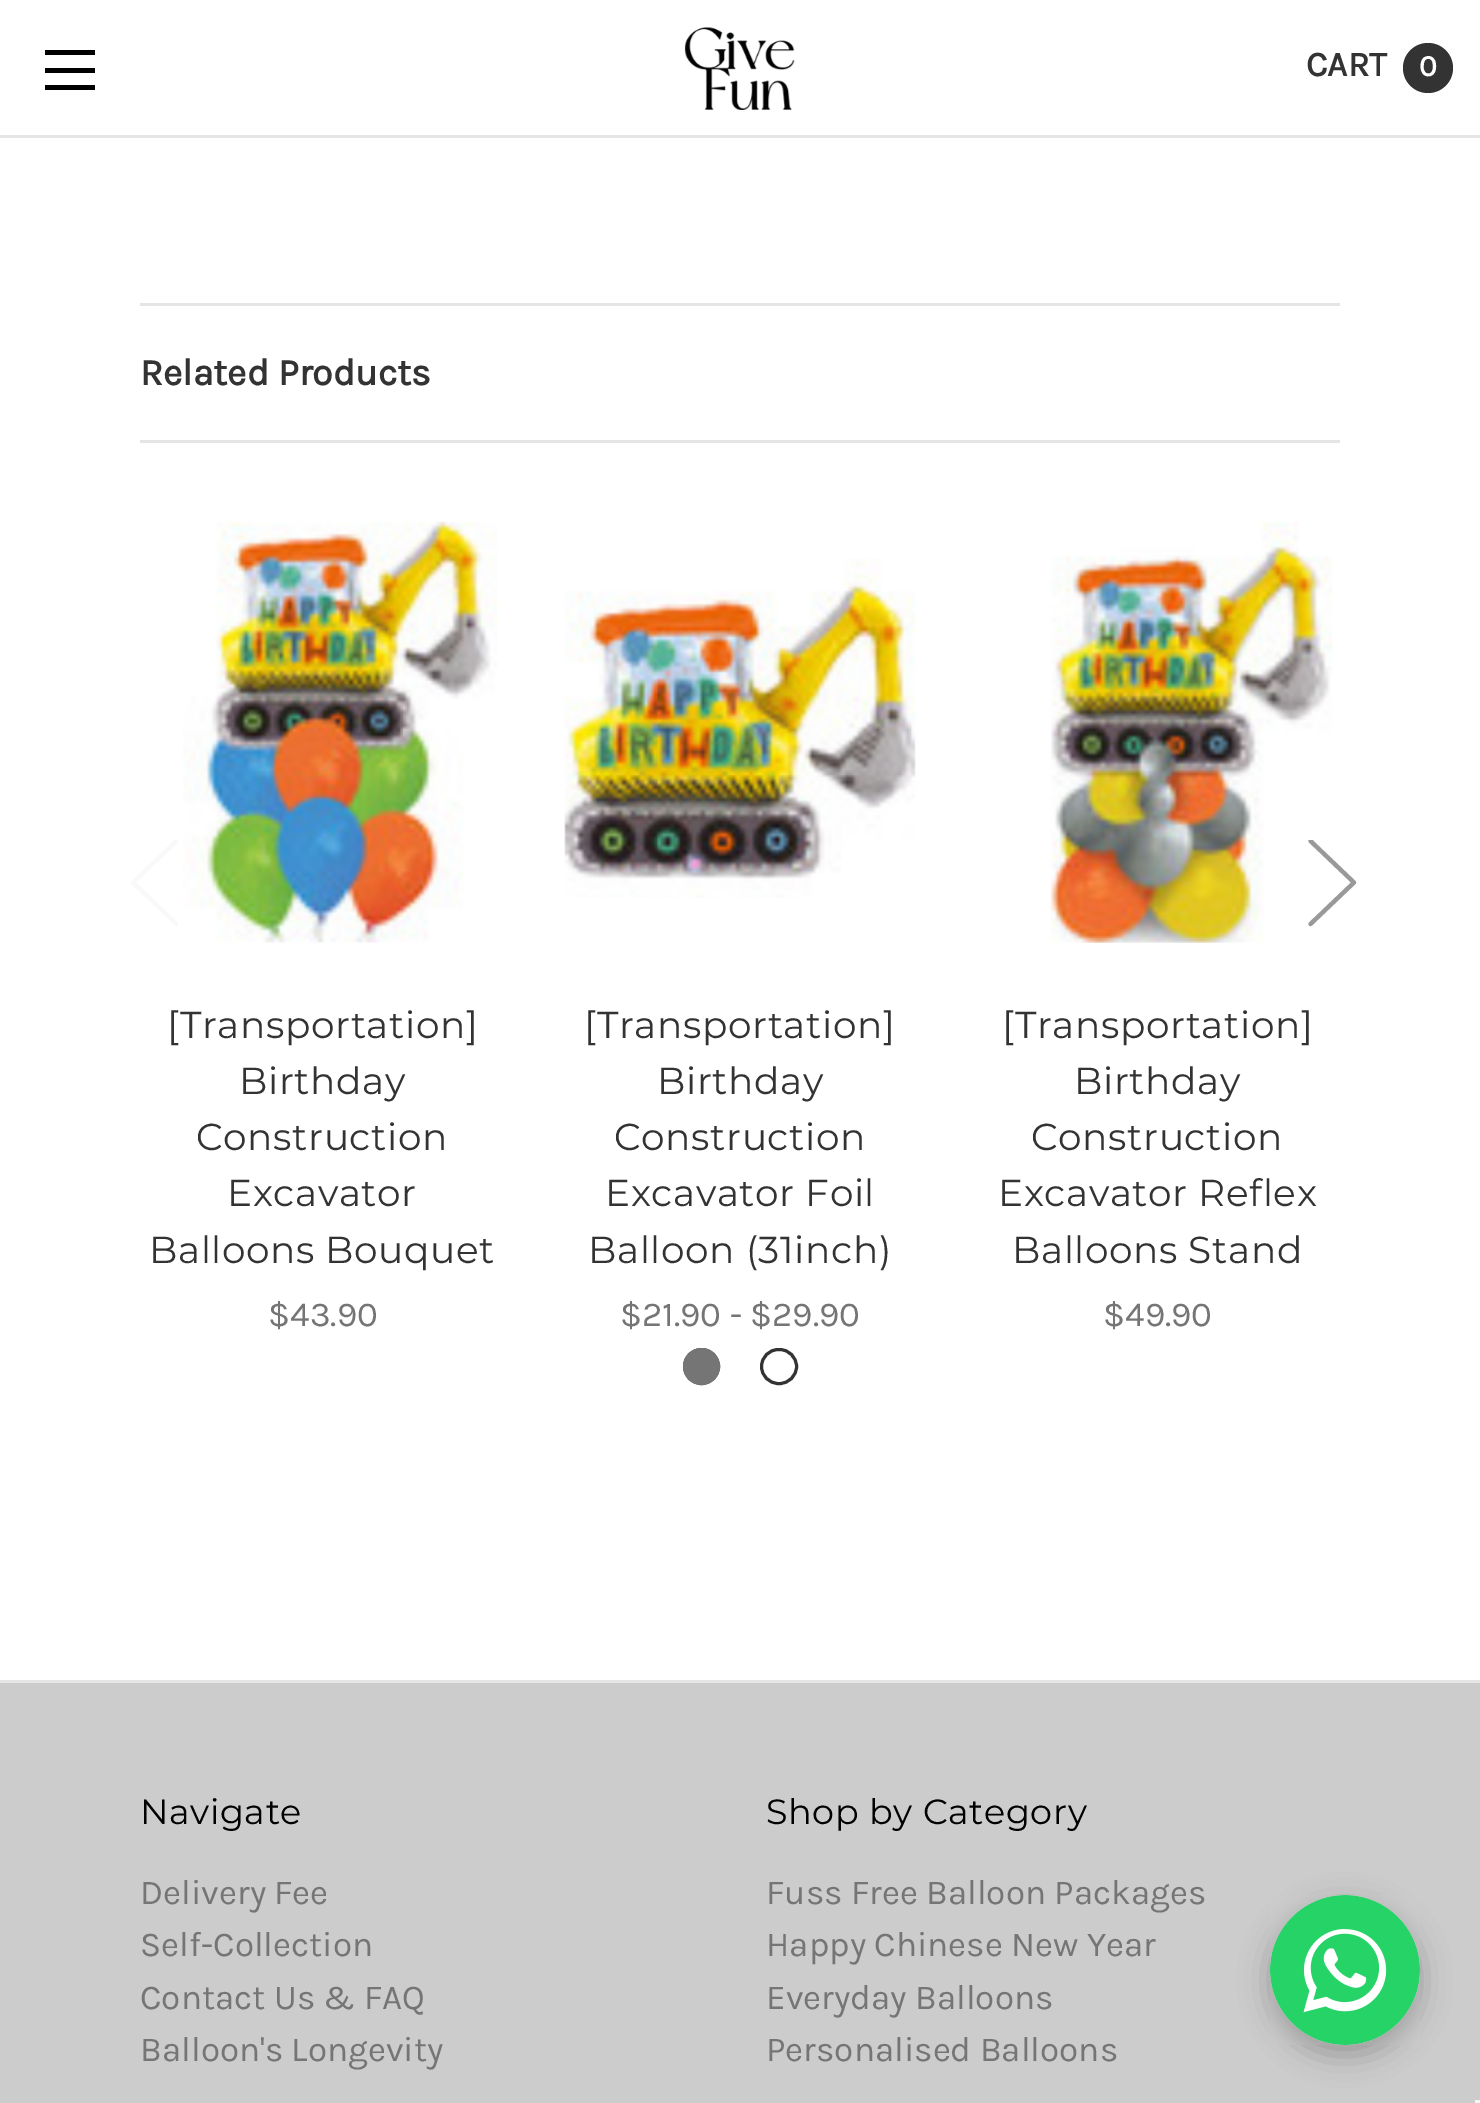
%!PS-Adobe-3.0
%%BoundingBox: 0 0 1480 2103
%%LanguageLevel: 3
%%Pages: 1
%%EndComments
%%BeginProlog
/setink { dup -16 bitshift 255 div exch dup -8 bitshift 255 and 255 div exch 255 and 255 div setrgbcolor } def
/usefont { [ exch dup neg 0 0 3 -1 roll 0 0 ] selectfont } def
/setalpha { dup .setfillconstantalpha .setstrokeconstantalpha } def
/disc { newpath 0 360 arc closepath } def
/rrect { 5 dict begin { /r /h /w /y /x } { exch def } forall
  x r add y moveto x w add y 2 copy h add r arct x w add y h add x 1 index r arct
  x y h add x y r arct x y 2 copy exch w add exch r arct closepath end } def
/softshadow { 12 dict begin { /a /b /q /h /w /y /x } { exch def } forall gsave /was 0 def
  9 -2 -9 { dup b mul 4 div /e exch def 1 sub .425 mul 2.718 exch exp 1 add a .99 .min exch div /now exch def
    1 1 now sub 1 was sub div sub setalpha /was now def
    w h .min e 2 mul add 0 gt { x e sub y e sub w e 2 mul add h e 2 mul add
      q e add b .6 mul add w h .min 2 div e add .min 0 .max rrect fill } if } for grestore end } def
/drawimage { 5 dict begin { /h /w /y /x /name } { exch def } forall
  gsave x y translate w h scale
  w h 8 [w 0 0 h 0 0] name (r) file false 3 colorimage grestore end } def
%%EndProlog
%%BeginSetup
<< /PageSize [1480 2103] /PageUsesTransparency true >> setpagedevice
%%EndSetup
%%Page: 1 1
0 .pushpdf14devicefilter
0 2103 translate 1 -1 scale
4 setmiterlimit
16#FFFFFF setink
0 0 1480 2103 rectfill
[
    [0 135 1480 3 16#E5E5E5]
    [45 68 50 5 16#000000]
    [45 50 50 5 16#000000]
    [45 85 50 5 16#000000]
] { aload pop setink rectfill } forall
(img1.raw) 684 27 111 83 drawimage
/Karla-Bold 35 usefont
16#333333 setink
1306 76 moveto (CART) show
1428 68 25 disc fill
/Karla-Bold 30 usefont
16#FFFFFF setink
1419 76 moveto (0) show
16#E5E5E5 setink
140 440 1200 3 rectfill
140 303 1200 3 rectfill
/Karla-Bold 37.5 usefont
16#333333 setink
140 385 moveto (Related Products) show
gsave
130 840 48 88 rectclip
16#F9F9F9 setink
4.2 setlinewidth
1 setlinecap
1 setlinejoin
176.5 841 moveto 133 882.5 lineto 176.5 924 lineto stroke
grestore
(img4.raw) 1050 521 283 422 drawimage
gsave
1308 840 50 88 rectclip
16#999999 setink
4.2 setlinewidth
1 setlinecap
1 setlinejoin
1310.5 841 moveto 1354 882.5 lineto 1310.5 924 lineto stroke
grestore
(img2.raw) 183 521 315 422 drawimage
/Montserrat-Thin 37.5 usefont
167 1038 moveto 0.6 0 ([Transportation]) ashow
239 1094 moveto 0.6 0 (Birthday) ashow
196 1150 moveto 0.6 0 (Construction) ashow
227 1206 moveto 0.6 0 (Excavator) ashow
149 1263 moveto 0.6 0 (Balloons Bouquet) ashow
/Karla-Regular 35 usefont
16#757575 setink
268 1326 moveto ($43.90) show
(img3.raw) 564 558 352 340 drawimage
/Montserrat-Thin 37.5 usefont
16#333333 setink
584 1038 moveto 0.6 0 ([Transportation]) ashow
657 1094 moveto 0.6 0 (Birthday) ashow
614 1150 moveto 0.6 0 (Construction) ashow
605 1206 moveto 0.6 0 (Excavator Foil) ashow
588 1263 moveto 0.6 0 (Balloon \(31inch\)) ashow
/Karla-Regular 35 usefont
16#757575 setink
620 1326 moveto ($21.90 - $29.90) show
/Montserrat-Thin 37.5 usefont
16#333333 setink
1002 1038 moveto 0.6 0 ([Transportation]) ashow
1074 1094 moveto 0.6 0 (Birthday) ashow
1031 1150 moveto 0.6 0 (Construction) ashow
998 1206 moveto 0.6 0 (Excavator Reflex) ashow
1012 1263 moveto 0.6 0 (Balloons Stand) ashow
/Karla-Regular 35 usefont
16#757575 setink
1103 1326 moveto ($49.90) show
16#333333 setink
3 setlinewidth
701.5 1366.5 17 disc stroke
16#757575 setink
701.5 1366.5 18.5 disc fill
16#333333 setink
761.5 1349.5 35 34 17 rrect stroke
16#CCCCCC setink
0 1683 1480 420 rectfill
16#E5E5E5 setink
0 1680 1480 3 rectfill
/Montserrat-Thin 35 usefont
16#000000 setink
140 1824 moveto 0.6 0 (Navigate) ashow
/Karla-Regular 35 usefont
16#757575 setink
[
    [(Delivery Fee) 140 1904]
    [(Self-Collection) 140 1956]
    [(Contact Us & FAQ) 140 2009]
    [(Balloon's Longevity) 140 2061]
] { aload pop moveto show } forall
/Montserrat-Thin 35 usefont
16#000000 setink
766 1824 moveto 0.6 0 (Shop by Category) ashow
/Karla-Regular 35 usefont
16#757575 setink
[
    [(Fuss Free Balloon Packages) 766 1904]
    [(Happy Chinese New Year) 766 1956]
    [(Everyday Balloons) 766 2009]
    [(Personalised Balloons) 766 2061]
] { aload pop moveto show } forall
16#000000 setink
1270 1905 150 150 75 15 0.25 softshadow
(img5.raw) 1270 1895 150 150 drawimage
16#F5F5F5 setink
1475 2100 5 3 rectfill
.poppdf14devicefilter showpage
%%EOF
